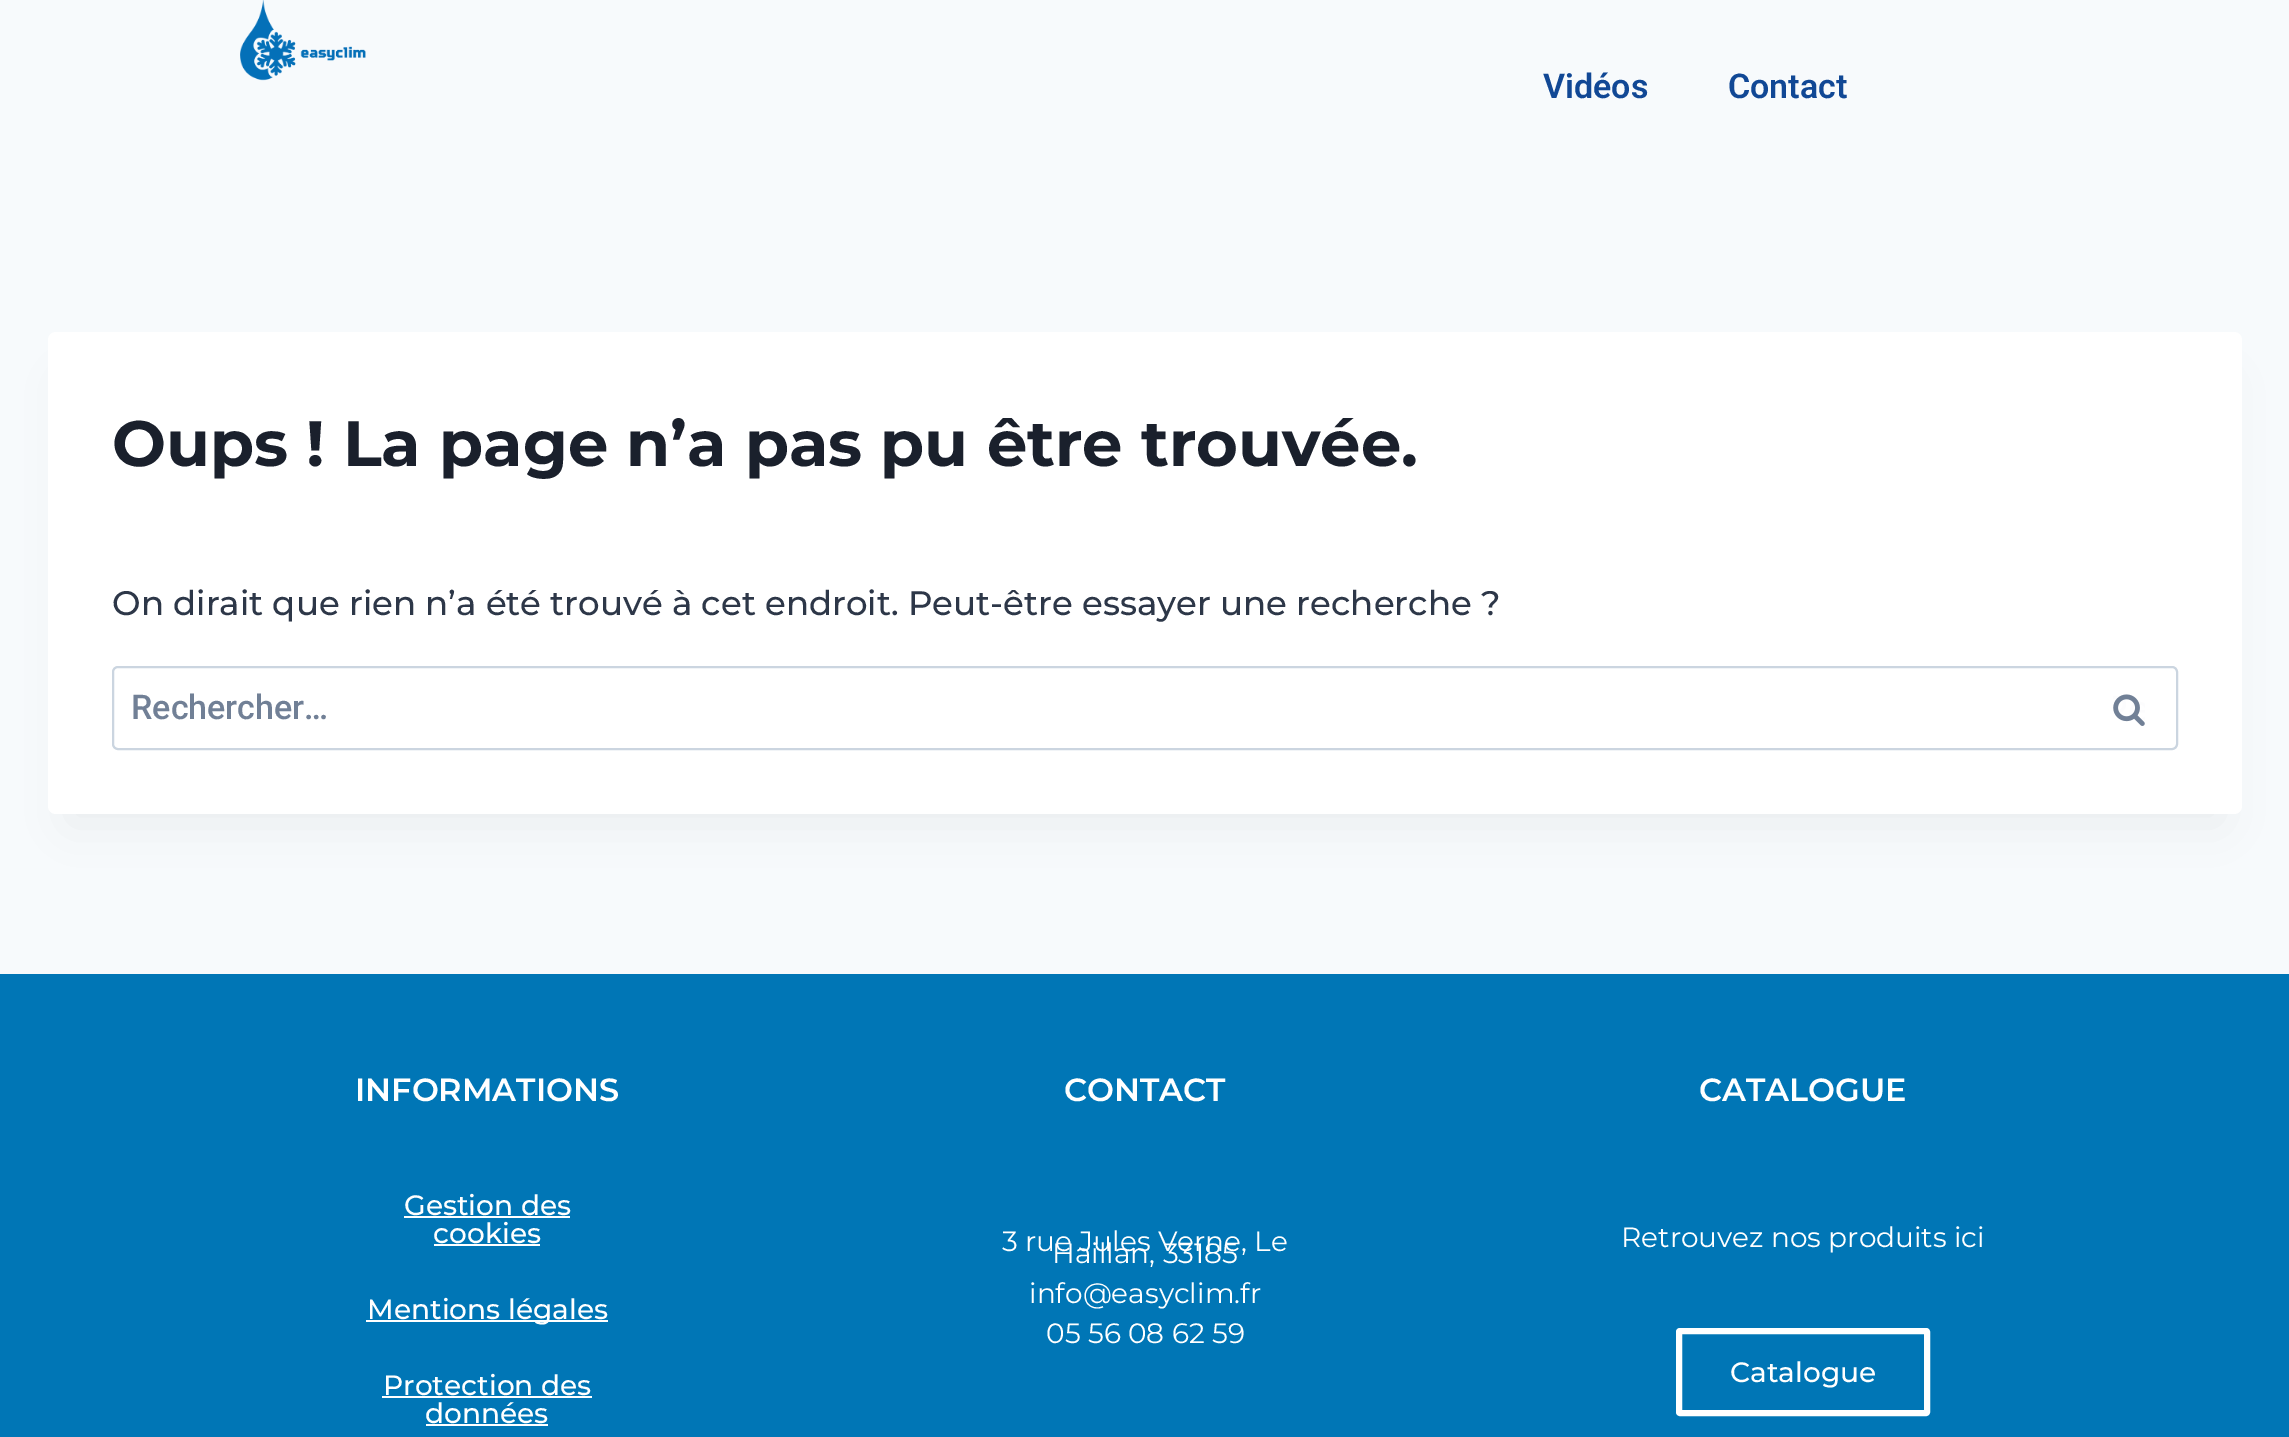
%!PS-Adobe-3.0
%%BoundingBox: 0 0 2289 1437
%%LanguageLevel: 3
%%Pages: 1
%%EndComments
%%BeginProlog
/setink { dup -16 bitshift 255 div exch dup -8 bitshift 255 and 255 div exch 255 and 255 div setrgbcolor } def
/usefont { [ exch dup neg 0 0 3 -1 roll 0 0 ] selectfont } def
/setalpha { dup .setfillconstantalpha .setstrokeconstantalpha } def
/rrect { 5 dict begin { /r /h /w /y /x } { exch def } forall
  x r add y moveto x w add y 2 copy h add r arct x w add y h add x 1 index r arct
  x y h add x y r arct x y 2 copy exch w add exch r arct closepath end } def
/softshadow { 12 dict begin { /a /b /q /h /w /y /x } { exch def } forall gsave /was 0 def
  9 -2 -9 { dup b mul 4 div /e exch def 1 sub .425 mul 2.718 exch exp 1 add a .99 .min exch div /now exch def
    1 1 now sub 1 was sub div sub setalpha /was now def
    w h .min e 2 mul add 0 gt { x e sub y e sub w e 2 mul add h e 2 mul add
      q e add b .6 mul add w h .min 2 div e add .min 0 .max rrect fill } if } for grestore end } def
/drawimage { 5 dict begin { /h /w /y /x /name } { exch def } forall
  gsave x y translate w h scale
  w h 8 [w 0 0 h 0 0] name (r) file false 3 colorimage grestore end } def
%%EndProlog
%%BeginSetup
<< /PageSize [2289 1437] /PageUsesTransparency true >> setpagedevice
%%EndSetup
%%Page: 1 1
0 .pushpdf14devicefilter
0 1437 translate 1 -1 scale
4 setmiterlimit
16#F7FAFC setink
0 0 2289 1437 rectfill
(img1.raw) 240 0 126 81 drawimage
/Roboto-SemiBold 34 usefont
16#114895 setink
1543 98 moveto (Vidéos) show
1728 98 moveto (Contact) show
16#000000 setink
68 382 2154 442 0 25 0.05 softshadow
16#FFFFFF setink
48 332 2194 482 8 rrect fill
/Montserrat-Bold 64 usefont
16#1A202C setink
112 466 moveto (Oups ! La page n’a pas pu être trouvée.) show
/Montserrat-Medium 34 usefont
16#2D3748 setink
112 615 moveto (On dirait que rien n’a été trouvé à cet endroit. Peut-être essayer une recherche ?) show
16#CBD5E0 setink
2 setlinewidth
113 667 2064 82 5 rrect stroke
/Roboto-Medium 34 usefont
16#718096 setink
131 719 moveto (Rechercher…) show
(img2.raw) 2113 694 32 32 drawimage
16#0076B6 setink
0 974 2289 463 rectfill
/Montserrat-SemiBold 32 usefont
16#FFFFFF setink
355 1101 moveto (INFORMATIONS) show
/Montserrat-Medium 28 usefont
404 1215 moveto (Gestion des) show
404 1216 166 2 rectfill
433 1243 moveto (cookies) show
434 1244 106 2 rectfill
366 1320 242 2 rectfill
367 1319 moveto (Mentions légales) show
383 1395 moveto (Protection des) show
382 1396 210 2 rectfill
425 1423 moveto (données) show
426 1424 122 2 rectfill
/Montserrat-SemiBold 32 usefont
1064 1101 moveto (CONTACT) show
/Montserrat-Regular 28 usefont
[
    [(3 rue Jules Verne, Le) 1002 1251]
    [(Haillan, 33185) 1052 1263]
    [(info@easyclim.fr) 1029 1303]
    [(05 56 08 62 59) 1046 1343]
] { aload pop moveto show } forall
/Montserrat-SemiBold 32 usefont
1699 1101 moveto (CATALOGUE) show
/Montserrat-Regular 28 usefont
1621 1247 moveto (Retrouvez nos produits ici) show
6 setlinewidth
1679 1331 248 82 1 rrect stroke
/Montserrat-Medium 28 usefont
1730 1382 moveto (Catalogue) show
.poppdf14devicefilter showpage
%%EOF
